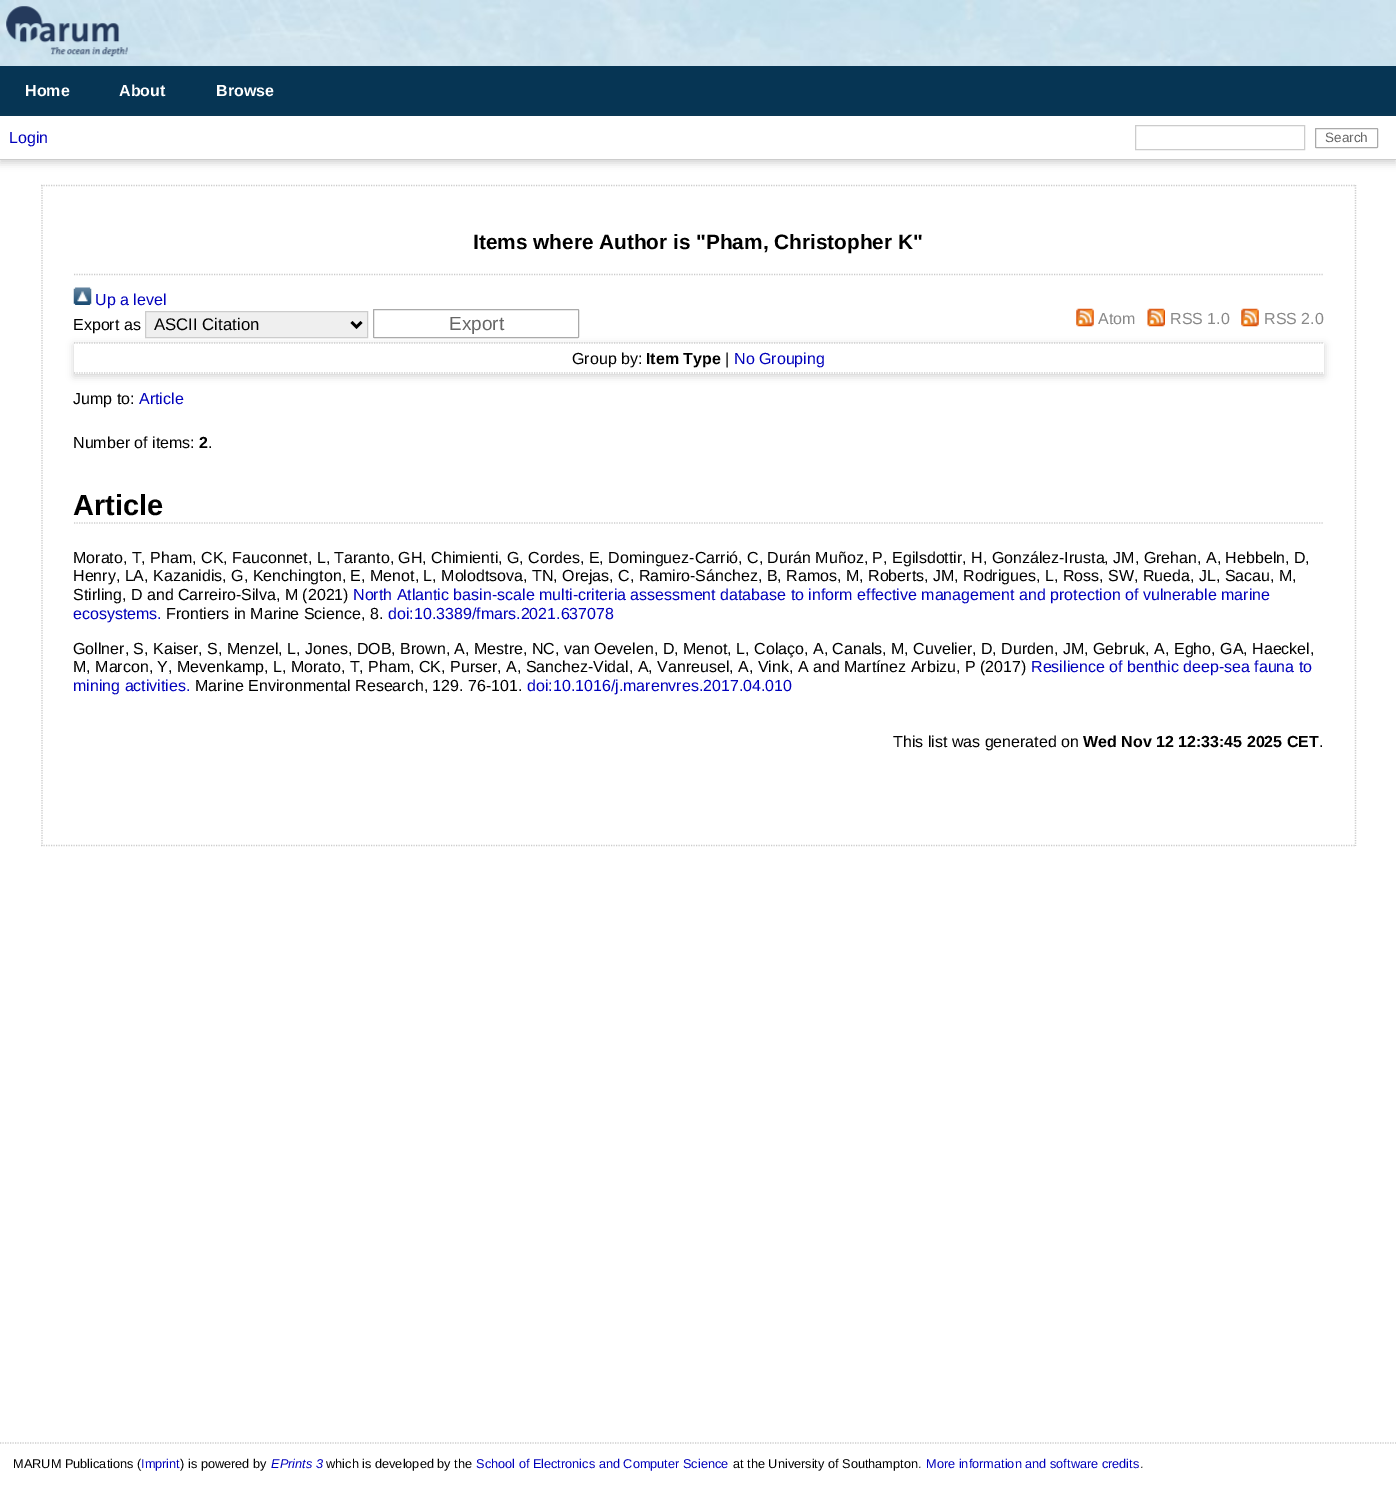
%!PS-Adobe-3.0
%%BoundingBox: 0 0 1396 1498
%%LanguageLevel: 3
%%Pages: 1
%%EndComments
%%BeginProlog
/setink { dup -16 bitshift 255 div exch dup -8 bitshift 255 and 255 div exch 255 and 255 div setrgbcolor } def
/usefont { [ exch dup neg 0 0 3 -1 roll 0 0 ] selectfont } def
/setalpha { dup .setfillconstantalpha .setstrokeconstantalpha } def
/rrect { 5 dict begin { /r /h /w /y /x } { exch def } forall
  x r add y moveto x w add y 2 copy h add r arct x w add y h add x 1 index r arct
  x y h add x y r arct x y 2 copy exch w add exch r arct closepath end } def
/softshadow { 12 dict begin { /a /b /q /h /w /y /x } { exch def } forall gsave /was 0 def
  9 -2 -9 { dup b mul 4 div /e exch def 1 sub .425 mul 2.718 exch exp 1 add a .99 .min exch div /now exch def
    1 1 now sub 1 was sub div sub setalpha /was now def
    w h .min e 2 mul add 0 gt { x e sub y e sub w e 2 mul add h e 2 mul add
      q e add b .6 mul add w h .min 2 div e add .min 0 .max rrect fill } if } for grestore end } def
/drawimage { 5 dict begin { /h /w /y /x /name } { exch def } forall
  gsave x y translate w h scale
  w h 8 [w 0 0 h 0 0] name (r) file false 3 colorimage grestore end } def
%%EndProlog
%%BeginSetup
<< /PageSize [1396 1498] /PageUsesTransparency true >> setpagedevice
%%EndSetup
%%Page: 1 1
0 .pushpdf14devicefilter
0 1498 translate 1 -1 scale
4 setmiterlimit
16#FFFFFF setink
0 0 1396 1498 rectfill
(img1.raw) 0 0 1396 66 drawimage
(img2.raw) 6 6 122 51 drawimage
16#063554 setink
0 66 1396 50 rectfill
/LiberationSans-Bold 16 usefont
16#FFFFFF setink
[
    [(Home) 25 96]
    [(About) 119 96]
    [(Browse) 216 96]
] { aload pop moveto show } forall
16#646464 setink
0 119 1396 44 0 4 0.3 softshadow
16#FFFFFF setink
0 116 1396 43 rectfill
16#CCCCCC setink
0 159 1396 1 rectfill
/LiberationSans-Regular 16 usefont
16#0000BB setink
9 143 moveto (Login) show
16#CCCCCC setink
1135.5 125.5 169 24 rectstroke
16#AAAAAA setink
1315.5 128.5 62 19 0.5 rrect stroke
/LiberationSans-Regular 13.5 usefont
16#666666 setink
1325 142 moveto (Search) show
16#CCCCCC setink
1.2 setlinewidth
[1.25 1.25] 0 setdash
41 185.5 moveto 1356 185.5 lineto stroke
1355.5 185 moveto 1355.5 846 lineto stroke
41 845.5 moveto 1356 845.5 lineto stroke
42 185 moveto 42 846 lineto stroke
74 274.5 moveto 1324 274.5 lineto stroke
/LiberationSans-Bold 20.8 usefont
16#000000 setink
473 249 moveto (Items where Author is "Pham, Christopher K) show
913 249 moveto (") show
(img3.raw) 73 287 19 18 drawimage
/LiberationSans-Regular 16 usefont
16#0000BB setink
95 305 moveto (Up a level) show
16#646464 setink
74 345 1250 31 0 4 0.3 softshadow
16#000000 setink
73 330 moveto (Export as) show
16#EFEFEF setink
145.5 311.5 moveto 367.5 311.5 lineto 367.5 337.5 lineto 145.5 337.5 lineto closepath gsave fill grestore
16#CCCCCC setink
1 setlinewidth
[] 0 setdash
stroke
16#000000 setink
2.5 setlinewidth
351.5 322 moveto 356.5 327 lineto 361.5 322 lineto stroke
/LiberationSans-Regular 16.75 usefont
154 330 moveto (ASCII Citation) show
16#AAAAAA setink
1 setlinewidth
373.5 309.5 205 28 0.5 rrect stroke
/LiberationSans-Regular 19 usefont
16#666666 setink
449 330 moveto (Export) show
(img4.raw) 1076 308 18 19 drawimage
/LiberationSans-Regular 16 usefont
16#888888 setink
1098 324 moveto (Atom) show
(img5.raw) 1147 308 18 19 drawimage
1170 324 moveto (RSS 1.0) show
(img4.raw) 1241 308 18 19 drawimage
1264 324 moveto (RSS 2.0) show
16#FFFFFF setink
74 343 1250 31 rectfill
16#CCCCCC setink
1.2 setlinewidth
[1.25 1.25] 0 setdash
74 343 moveto 1324 343 lineto stroke
74 373 moveto 1324 373 lineto stroke
16#000000 setink
572 364 moveto (Group by:) show
/LiberationSans-Bold 16 usefont
646 364 moveto (Item Type) show
/LiberationSans-Regular 16 usefont
725 364 moveto (|) show
16#0000BB setink
734 364 moveto (No Grouping) show
16#000000 setink
73 404 moveto (Jump to:) show
16#0000BB setink
139 404 moveto (Article) show
16#000000 setink
73 448 moveto (Number of items:) show
/LiberationSans-Bold 16 usefont
199 448 moveto (2) show
/LiberationSans-Regular 16 usefont
208 448 moveto (.) show
16#CCCCCC setink
74 523 moveto 1324 523 lineto stroke
/LiberationSans-Bold 29 usefont
16#000000 setink
73 515 moveto (Article) show
/LiberationSans-Regular 16 usefont
[
    [(Morato, T, Pham, CK, Fauconnet, L, Taranto, GH, Chimienti, G, Cordes, E, Dominguez-Carrió, C, Durán Muñoz, P, Egilsdottir, H, González-Irusta, JM, Grehan, A, Hebbeln, D,) 73 563]
    [(Henry, LA, Kazanidis, G, Kenchington, E, Menot, L, Molodtsova, TN, Orejas, C, Ramiro-Sánchez, B, Ramos, M, Roberts, JM, Rodrigues, L, Ross, SW, Rueda, JL, Sacau, M,) 73 581]
    [(Stirling, D and Carreiro-Silva, M \(2021\)) 73 600]
] { aload pop moveto show } forall
16#0000BB setink
353 600 moveto (North Atlantic basin-scale multi-criteria assessment database to inform effective management and protection of vulnerable marine) show
73 619 moveto (ecosystems.) show
16#000000 setink
166 619 moveto (Frontiers in Marine Science, 8.) show
16#0000BB setink
388 619 moveto (doi:10.3389/fmars.2021.637078) show
16#000000 setink
73 654 moveto (Gollner, S, Kaiser, S, Menzel, L, Jones, DOB, Brown, A, Mestre, NC, van Oevelen, D, Menot, L, Colaço, A, Canals, M, Cuvelier, D, Durden, JM, Gebruk, A, Egho, GA, Haeckel,) show
73 672 moveto (M, Marcon, Y, Mevenkamp, L, Morato, T, Pham, CK, Purser, A, Sanchez-Vidal, A, Vanreusel, A, Vink, A and Martínez Arbizu, P \(2017\)) show
16#0000BB setink
1031 672 moveto (Resilience of benthic deep-sea fauna to) show
73 691 moveto (mining activities.) show
16#000000 setink
195 691 moveto (Marine Environmental Research, 129. 76-101.) show
16#0000BB setink
527 691 moveto (doi:10.1016/j.marenvres.2017.04.010) show
16#000000 setink
893 747 moveto (This list was generated on) show
/LiberationSans-Bold 16 usefont
1083 747 moveto (Wed Nov 12 12:33:45 2025 CET) show
/LiberationSans-Regular 16 usefont
1319 747 moveto (.) show
16#CCCCCC setink
0 1443 moveto 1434 1443 lineto stroke
/LiberationSans-Regular 12.75 usefont
16#000000 setink
13 1468 moveto (MARUM Publications \() show
16#0000BB setink
141 1468 moveto (Imprint) show
16#000000 setink
180 1468 moveto (\) is powered by) show
/LiberationSans-Italic 12.75 usefont
16#0000BB setink
271 1468 moveto (EPrints 3) show
/LiberationSans-Regular 12.75 usefont
16#000000 setink
326 1468 moveto (which is developed by the) show
16#0000BB setink
476 1468 moveto (School of Electronics and Computer Science) show
16#000000 setink
733 1468 moveto (at the University of Southampton.) show
16#0000BB setink
926 1468 moveto (More information and software credits) show
16#000000 setink
1140 1468 moveto (.) show
.poppdf14devicefilter showpage
%%EOF
